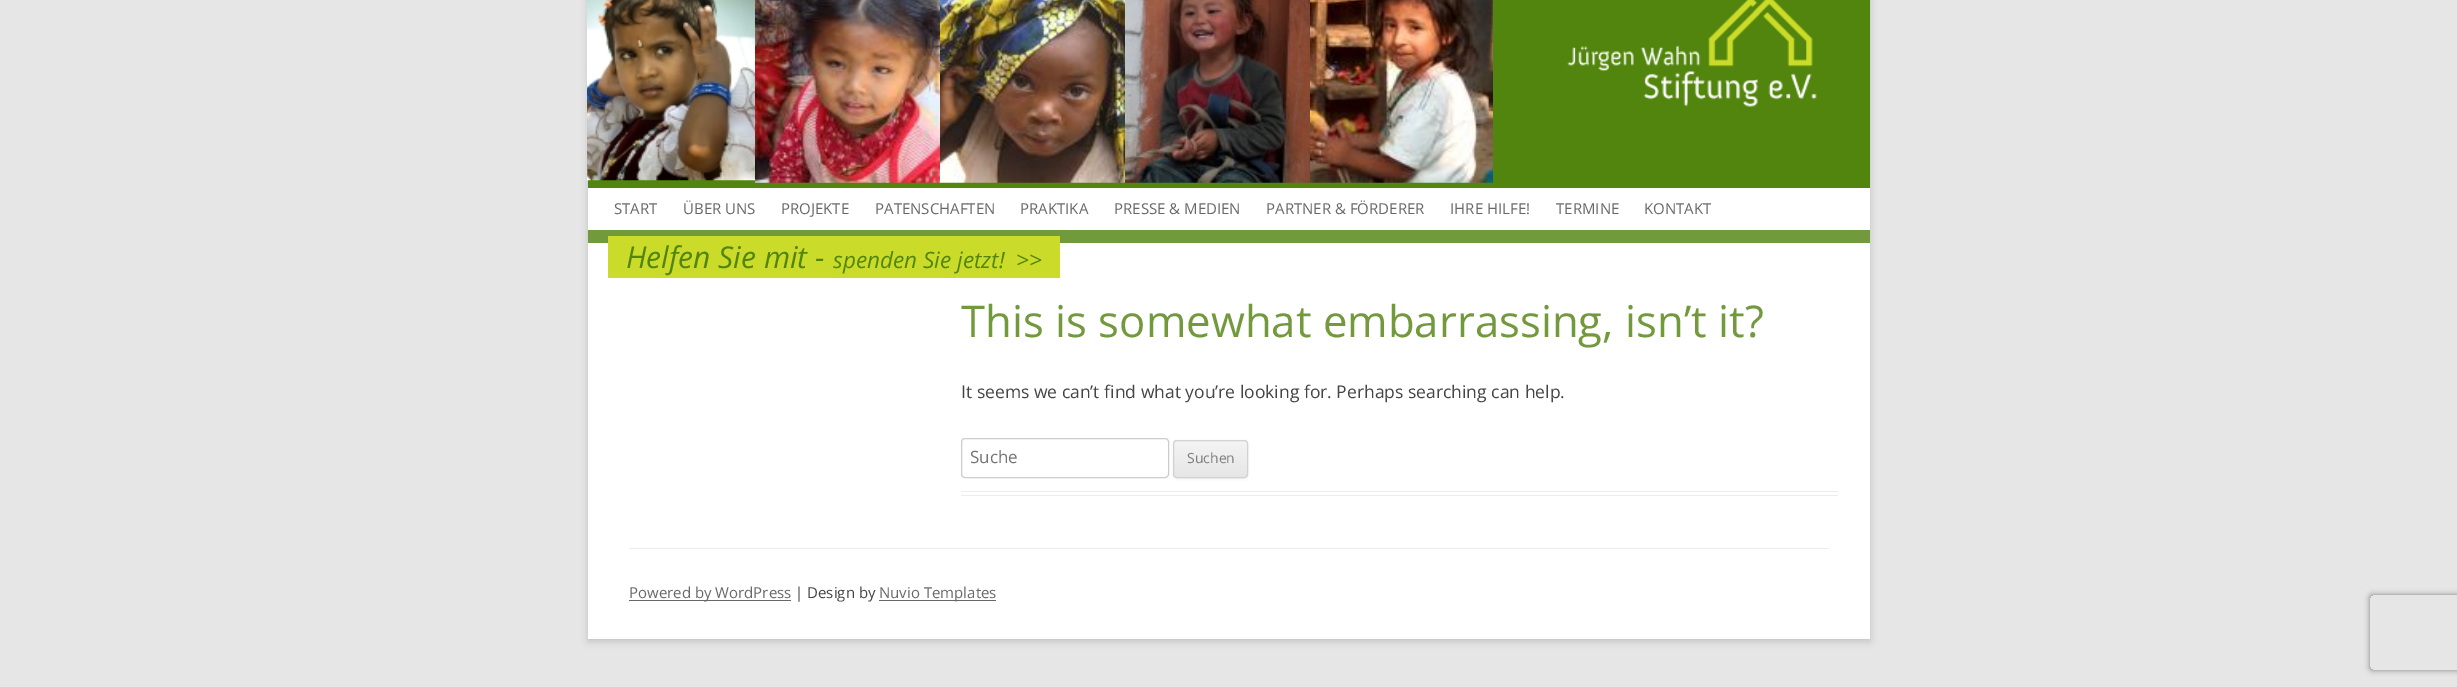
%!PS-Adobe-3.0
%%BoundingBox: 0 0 2457 687
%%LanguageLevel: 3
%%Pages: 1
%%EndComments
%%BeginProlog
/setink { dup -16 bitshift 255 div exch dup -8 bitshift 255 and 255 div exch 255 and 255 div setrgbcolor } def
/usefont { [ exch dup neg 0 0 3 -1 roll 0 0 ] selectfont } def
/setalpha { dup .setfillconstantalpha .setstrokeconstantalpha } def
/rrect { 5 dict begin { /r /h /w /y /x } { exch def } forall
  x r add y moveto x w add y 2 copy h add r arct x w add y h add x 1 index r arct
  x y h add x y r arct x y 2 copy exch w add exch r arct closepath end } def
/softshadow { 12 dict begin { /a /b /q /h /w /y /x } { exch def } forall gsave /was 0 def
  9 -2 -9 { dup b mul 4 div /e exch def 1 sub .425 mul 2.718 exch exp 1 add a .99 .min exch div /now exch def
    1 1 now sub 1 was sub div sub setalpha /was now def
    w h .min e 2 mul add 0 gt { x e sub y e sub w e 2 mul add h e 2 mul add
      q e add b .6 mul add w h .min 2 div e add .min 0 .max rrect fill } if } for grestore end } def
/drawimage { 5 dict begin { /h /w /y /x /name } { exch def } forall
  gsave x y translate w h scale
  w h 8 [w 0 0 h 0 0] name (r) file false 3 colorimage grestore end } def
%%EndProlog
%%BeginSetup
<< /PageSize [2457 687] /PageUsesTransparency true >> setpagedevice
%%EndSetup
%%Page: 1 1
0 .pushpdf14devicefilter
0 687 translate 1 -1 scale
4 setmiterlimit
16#E6E6E6 setink
0 0 2457 687 rectfill
16#646464 setink
588 -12 1282 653 0 4 0.3 softshadow
16#FFFFFF setink
588 243 1282 396 rectfill
16#52850D setink
588 0 1282 188 rectfill
(img1.raw) 587 0 168 181 drawimage
(img2.raw) 755 0 185 183 drawimage
(img3.raw) 940 0 185 183 drawimage
(img4.raw) 1125 0 185 183 drawimage
(img5.raw) 1310 0 183 183 drawimage
(img6.raw) 1567 0 250 107 drawimage
16#FFFFFF setink
588 188 1282 42 rectfill
/OpenSans-Regular 15 usefont
16#686868 setink
[
    [(START) 614 214]
    [(ÜBER UNS) 683 214]
    [(PROJEKTE) 781 214]
    [(PATENSCHAFTEN) 875 214]
    [(PRAKTIKA) 1020 214]
    [(PRESSE & MEDIEN) 1114 214]
    [(PARTNER & FÖRDERER) 1266 214]
    [(IHRE HILFE!) 1450 214]
    [(TERMINE) 1556 214]
    [(KONTAKT) 1644 214]
] { aload pop moveto show } forall
16#72993C setink
588 230 1282 13 rectfill
16#CBDB2A setink
608 236 452 42 rectfill
/OpenSans-Italic 30 usefont
16#52850D setink
626 268 moveto (Helfen Sie mit -) show
/OpenSans-Italic 22.5 usefont
833 268 moveto (spenden Sie jetzt!  >>) show
16#EDEDED setink
961 491 877 1 rectfill
961 495 877 1 rectfill
/OpenSans-Regular 43.75 usefont
16#72993C setink
961 337 moveto (This is somewhat embarrassing, isn’t it?) show
/OpenSans-Regular 17.5 usefont
16#444444 setink
961 398 moveto (It seems we can’t find what you’re looking for. Perhaps searching can help.) show
16#CCCCCC setink
961.5 438.5 207 39 3.5 rrect stroke
/OpenSans-Regular 17 usefont
16#757575 setink
970 463 moveto (Suche) show
16#404040 setink
1173 441 75 38 4 1 0.1 softshadow
16#E6E6E6 setink
1173 440 75 38 4 rrect fill
gsave
1173 440 75 38 4 rrect clip newpath
gsave 1173 441 moveto 1248 441 lineto 1248 476 lineto 1173 476 lineto closepath clip newpath
<< /ShadingType 2 /ColorSpace /DeviceRGB /Coords [1210 441 1210 476] /Extend [true true] /Function << /FunctionType 2 /Domain [0 1] /C0 [0.957 0.957 0.957] /C1 [0.902 0.902 0.902] /N 1 >> >> shfill grestore
grestore
16#D2D2D2 setink
1173.5 440.5 74 37 3.5 rrect stroke
/OpenSans-Regular 14 usefont
16#7C7C7C setink
1187 463 moveto (Suchen) show
16#EDEDED setink
629 548 1200 1 rectfill
16#686868 setink
629 600 162 1 rectfill
/OpenSans-Regular 15 usefont
629 598 moveto (Powered by WordPress) show
16#444444 setink
795 598 moveto (| Design by) show
16#686868 setink
879 600 117 1 rectfill
879 598 moveto (Nuvio Templates) show
gsave
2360 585 moveto 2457 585 lineto 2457 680 lineto 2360 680 lineto closepath 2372.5 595 moveto 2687.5 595 lineto 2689 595 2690 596 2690 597.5 curveto 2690 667.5 lineto 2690 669 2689 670 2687.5 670 curveto 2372.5 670 lineto 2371 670 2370 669 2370 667.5 curveto 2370 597.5 lineto 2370 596 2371 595 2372.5 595 curveto closepath eoclip newpath
16#808080 setink
2370 595 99 75 2.5 3 1 softshadow
grestore
.poppdf14devicefilter showpage
%%EOF
